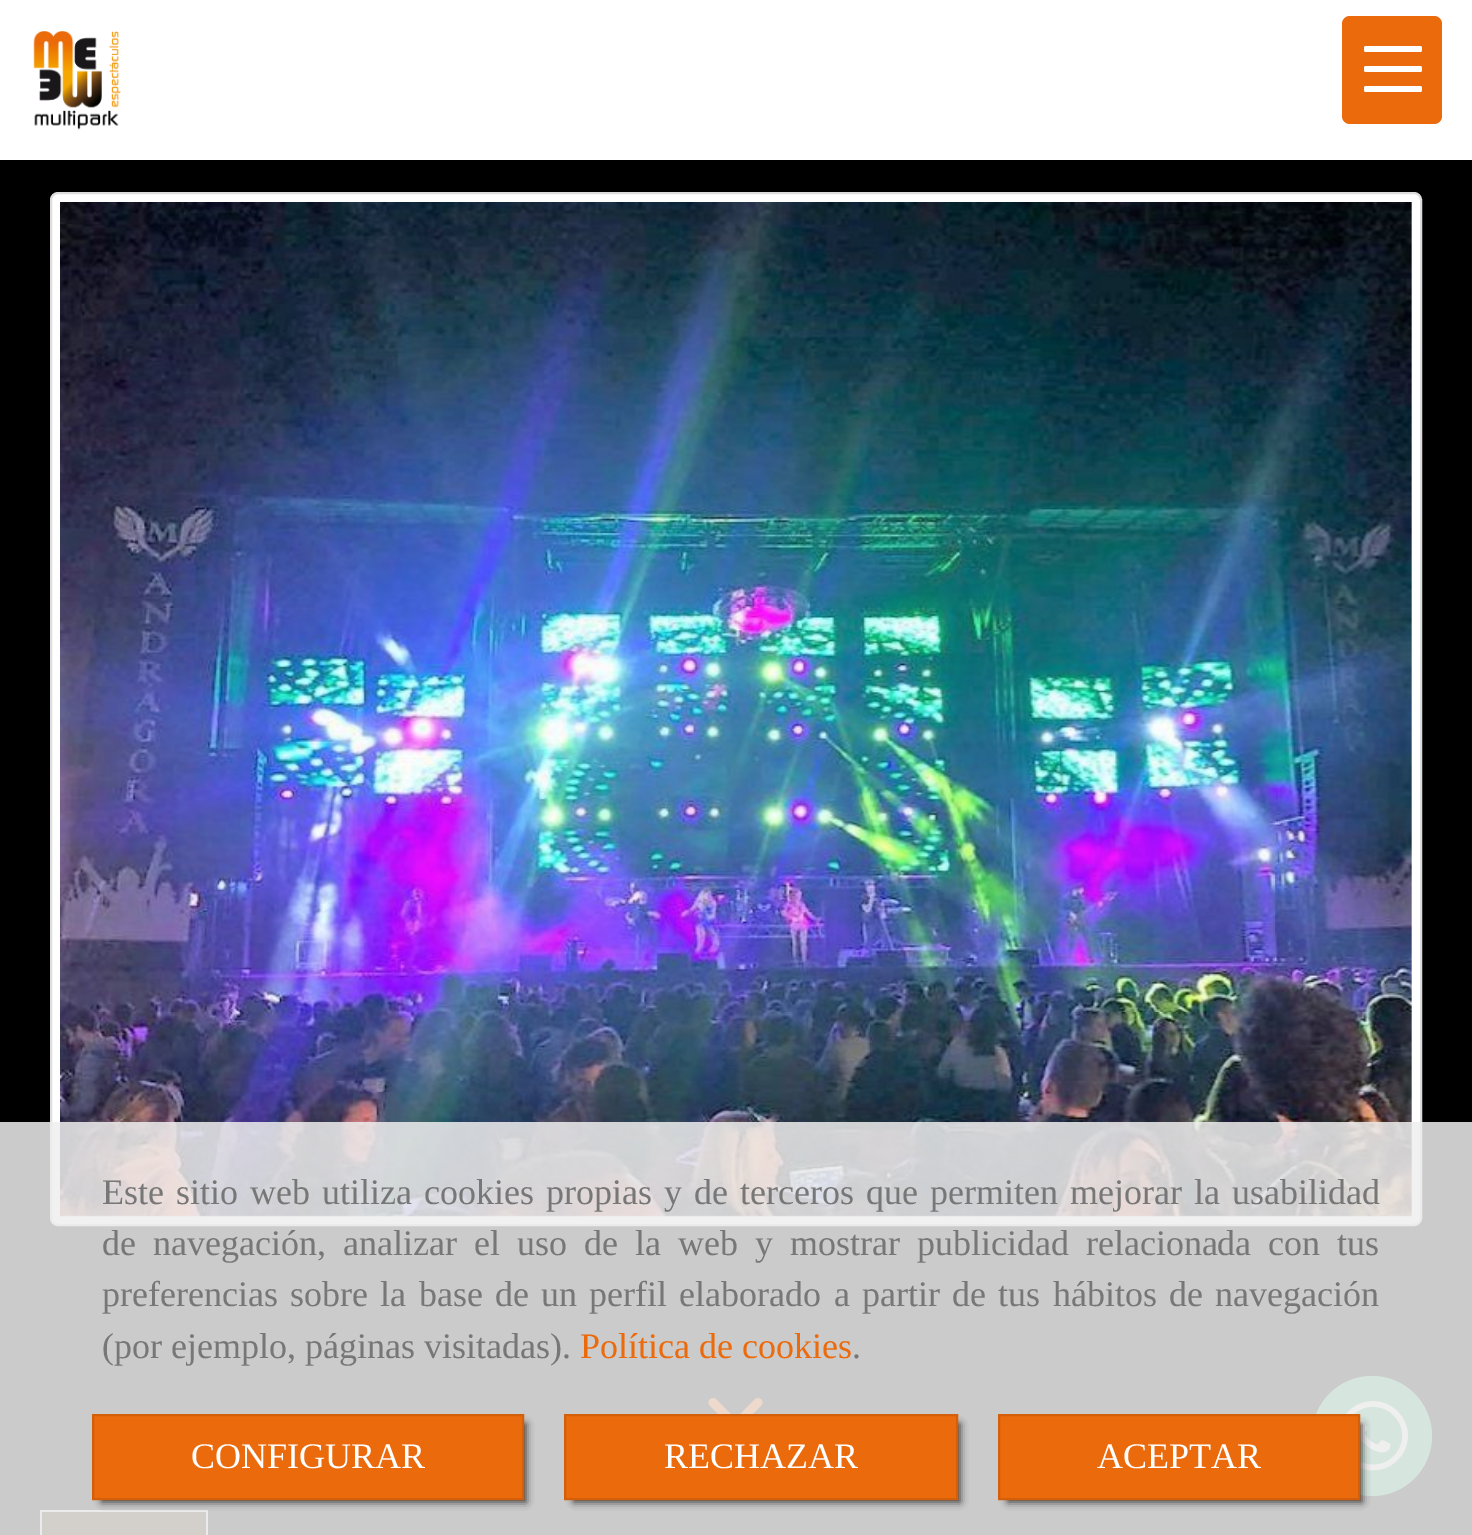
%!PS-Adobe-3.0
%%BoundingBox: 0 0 1472 1535
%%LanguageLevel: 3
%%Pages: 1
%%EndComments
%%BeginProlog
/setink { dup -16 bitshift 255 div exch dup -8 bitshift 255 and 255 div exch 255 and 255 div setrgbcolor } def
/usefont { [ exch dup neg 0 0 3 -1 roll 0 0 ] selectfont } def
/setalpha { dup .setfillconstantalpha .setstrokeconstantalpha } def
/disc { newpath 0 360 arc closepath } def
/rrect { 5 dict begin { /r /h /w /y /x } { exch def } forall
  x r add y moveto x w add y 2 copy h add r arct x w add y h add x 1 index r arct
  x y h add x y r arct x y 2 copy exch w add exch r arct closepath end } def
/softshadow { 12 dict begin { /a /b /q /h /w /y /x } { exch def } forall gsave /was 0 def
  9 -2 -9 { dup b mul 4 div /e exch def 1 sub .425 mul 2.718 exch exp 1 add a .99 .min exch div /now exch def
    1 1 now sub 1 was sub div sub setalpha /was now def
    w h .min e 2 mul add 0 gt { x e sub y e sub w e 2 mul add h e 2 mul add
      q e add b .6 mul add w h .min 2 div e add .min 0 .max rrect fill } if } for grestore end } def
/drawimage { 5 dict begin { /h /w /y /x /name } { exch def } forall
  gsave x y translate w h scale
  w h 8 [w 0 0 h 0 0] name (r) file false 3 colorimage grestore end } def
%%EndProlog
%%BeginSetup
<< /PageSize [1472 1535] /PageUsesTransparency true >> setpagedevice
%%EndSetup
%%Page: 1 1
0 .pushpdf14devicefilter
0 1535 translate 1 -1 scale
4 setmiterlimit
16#000000 setink
0 0 1472 1535 rectfill
16#FFFFFF setink
0 0 1472 160 rectfill
(img1.raw) 33 31 88 99 drawimage
16#EB6A0B setink
1342 16 100 108 8 rrect fill
16#FFFFFF setink
1364 66 58 6 2 rrect fill
1364 46 58 6 2 rrect fill
1364 86 58 6 2 rrect fill
51 193 1370 1032 7 rrect gsave fill grestore
16#DDDDDD setink
2 setlinewidth
stroke
(img2.raw) 60 202 1352 1015 drawimage
(img3.raw) 708 1398 55 16 drawimage
16#3B1B03 setink
42 1512 164 23 rectfill
16#DDDDDD setink
40 1510 168 2 rectfill
208 1510 moveto 208 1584 lineto 206 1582 lineto 206 1512 lineto closepath fill
40 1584 moveto 40 1510 lineto 42 1512 lineto 42 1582 lineto closepath fill
16#4EB980 setink
1372 1436 60 disc fill
(img4.raw) 1346 1401 62 70 drawimage
0.85 setalpha
16#EEEEEE setink
0 1122 1472 413 rectfill
/LiberationSerif-Regular 36 usefont
1 setalpha
16#777777 setink
102 1204 moveto 3 0 32 (Este sitio web utiliza cookies propias y de terceros que permiten mejorar la usabilidad) widthshow
102 1255 moveto 8 0 32 (de navegación, analizar el uso de la web y mostrar publicidad relacionada con tus) widthshow
102 1306 moveto 3.25 0 32 (preferencias sobre la base de un perfil elaborado a partir de tus hábitos de navegación) widthshow
102 1358 moveto (\(por ejemplo, páginas visitadas\).) show
16#EB6A0B setink
580 1358 moveto (Política de cookies) show
16#777777 setink
852 1358 moveto (.) show
16#000000 setink
102 1424 424 78 0 4 0.75 softshadow
16#EB6A0B setink
93 1415 moveto 523 1415 lineto 523 1499 lineto 93 1499 lineto closepath gsave fill grestore
16#D35F0A setink
stroke
16#FFFFFF setink
191 1468 moveto (CONFIGURAR) show
16#000000 setink
574 1424 386 78 0 4 0.75 softshadow
16#EB6A0B setink
565 1415 moveto 957 1415 lineto 957 1499 lineto 565 1499 lineto closepath gsave fill grestore
16#D35F0A setink
stroke
16#FFFFFF setink
664 1468 moveto (RECHAZAR) show
16#000000 setink
1008 1424 354 78 0 4 0.75 softshadow
16#EB6A0B setink
999 1415 moveto 1359 1415 lineto 1359 1499 lineto 999 1499 lineto closepath gsave fill grestore
16#D35F0A setink
stroke
16#FFFFFF setink
1097 1468 moveto (ACEPTAR) show
.poppdf14devicefilter showpage
%%EOF
